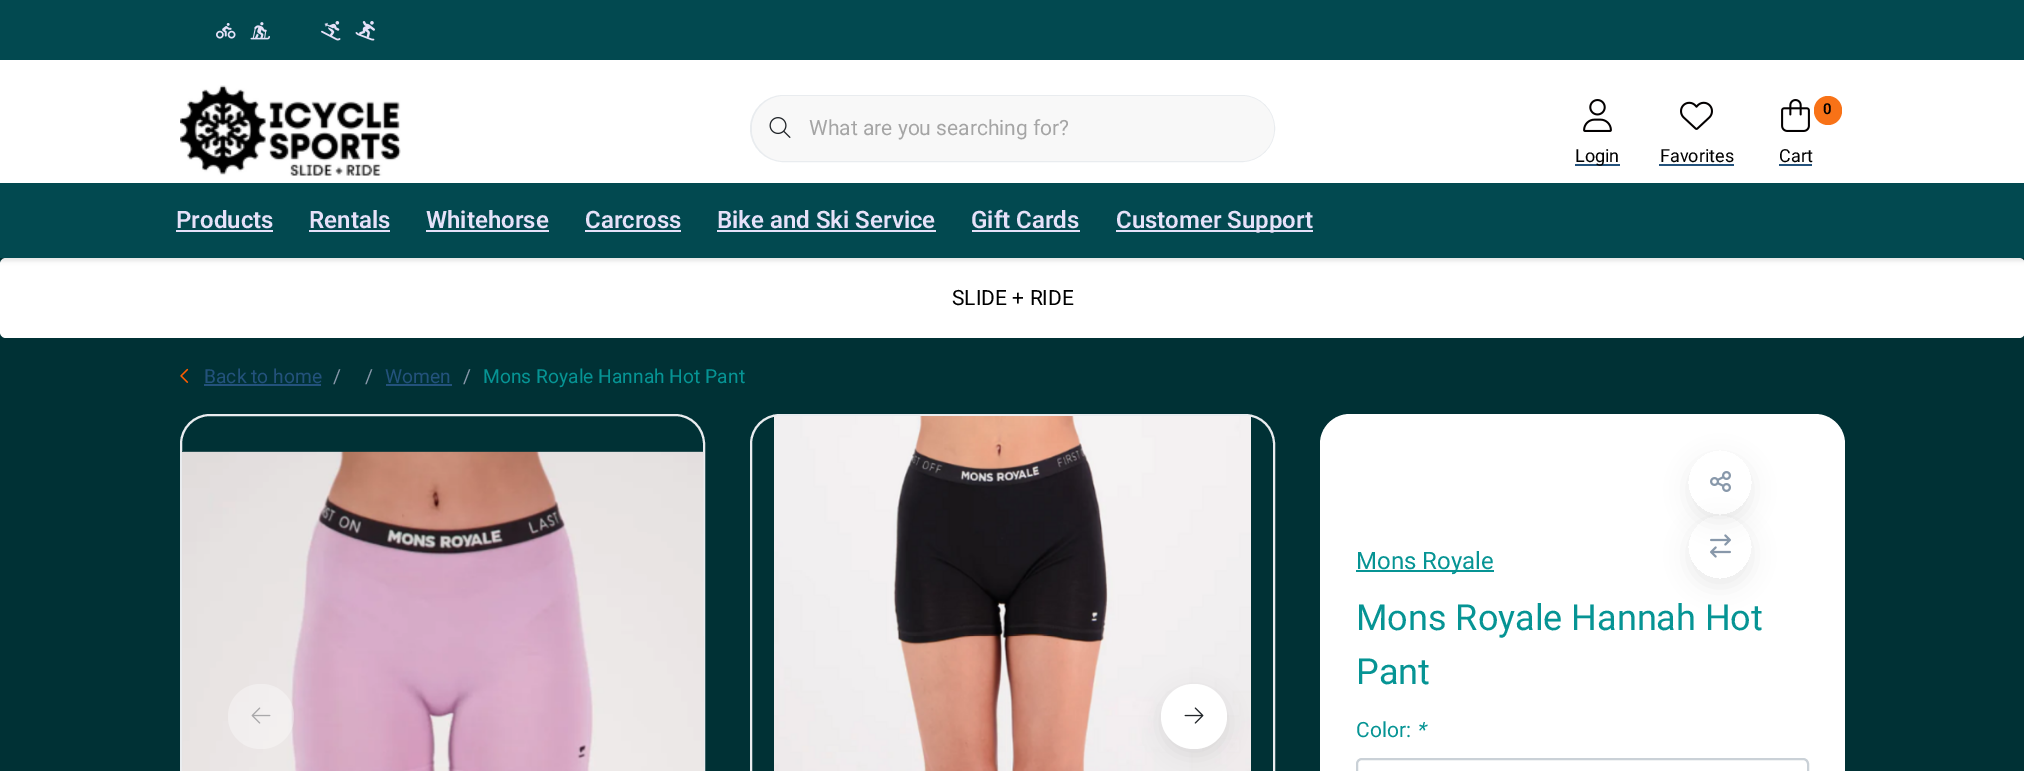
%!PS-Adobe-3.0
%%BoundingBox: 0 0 2024 771
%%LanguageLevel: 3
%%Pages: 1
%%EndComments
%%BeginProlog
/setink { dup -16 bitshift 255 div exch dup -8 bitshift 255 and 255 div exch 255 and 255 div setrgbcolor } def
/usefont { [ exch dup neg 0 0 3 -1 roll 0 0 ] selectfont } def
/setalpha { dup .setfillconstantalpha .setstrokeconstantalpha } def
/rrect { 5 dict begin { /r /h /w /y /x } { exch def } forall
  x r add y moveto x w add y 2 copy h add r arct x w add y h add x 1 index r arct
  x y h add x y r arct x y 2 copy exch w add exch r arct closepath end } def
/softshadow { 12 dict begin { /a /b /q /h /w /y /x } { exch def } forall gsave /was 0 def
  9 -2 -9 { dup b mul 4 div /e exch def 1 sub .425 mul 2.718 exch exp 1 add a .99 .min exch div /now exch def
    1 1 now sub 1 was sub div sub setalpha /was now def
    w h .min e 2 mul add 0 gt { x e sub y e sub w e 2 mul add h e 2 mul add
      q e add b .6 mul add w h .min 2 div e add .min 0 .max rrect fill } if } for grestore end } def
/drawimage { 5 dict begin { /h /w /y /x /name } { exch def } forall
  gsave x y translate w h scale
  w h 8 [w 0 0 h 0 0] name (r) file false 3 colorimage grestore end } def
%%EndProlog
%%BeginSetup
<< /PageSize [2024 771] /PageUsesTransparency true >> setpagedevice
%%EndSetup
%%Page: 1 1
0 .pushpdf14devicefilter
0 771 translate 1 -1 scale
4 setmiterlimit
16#003135 setink
0 0 2024 771 rectfill
16#FFFFFF setink
0 258 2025 80 6 rrect fill
16#000000 setink
0 3 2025 258 0 2 0.1 softshadow
16#FFFFFF setink
0 60 2024 123 rectfill
16#024950 setink
0 0 2024 60 rectfill
(img1.raw) 216 23 20 16 drawimage
(img2.raw) 250 22 20 18 drawimage
(img3.raw) 321 21 20 20 drawimage
(img4.raw) 355 21 20 20 drawimage
(img5.raw) 180 85 221 91 drawimage
16#E9ECEF setink
2 setlinewidth
751 96 523 65 32.5 rrect stroke
16#F8F8F8 setink
784.5 96 moveto 809 96 lineto 809 161 lineto 784.5 161 lineto 766.5 161 752 146.5 752 128.5 curveto 752 110.5 766.5 96 784.5 96 curveto closepath fill
(img6.raw) 769 117 22 21 drawimage
809 96 moveto 1241.5 96 lineto 1259.5 96 1274 110.5 1274 128.5 curveto 1274 146.5 1259.5 161 1241.5 161 curveto 809 161 lineto closepath fill
/Roboto-Regular 21 usefont
16#A5A5A5 setink
809 135 moveto (What are you searching for?) show
(img7.raw) 1583 99 29 33 drawimage
16#23527C setink
1575 164 45 2 rectfill
/Roboto-Regular 18 usefont
16#000000 setink
1575 162 moveto (Login) show
(img8.raw) 1680 101 33 29 drawimage
1660 162 moveto (Favorites) show
16#23527C setink
1659 164 75 2 rectfill
(img9.raw) 1781 99 29 33 drawimage
16#F87217 setink
1814 96 28 29 14 rrect fill
/Roboto-SemiBold 15 usefont
16#000000 setink
1823 114 moveto (0) show
/Roboto-Regular 18 usefont
1779 162 moveto (Cart) show
16#23527C setink
1779 164 33 2 rectfill
16#024950 setink
0 183 2024 75 rectfill
/Roboto-SemiBold 24 usefont
16#E6E1F9 setink
176 228 moveto (Products) show
176 230 97 2 rectfill
309 228 moveto (Rentals) show
309 230 81 2 rectfill
426 228 moveto (Whitehorse) show
426 230 123 2 rectfill
585 228 moveto (Carcross) show
585 230 96 2 rectfill
717 228 moveto (Bike and Ski Service) show
717 230 219 2 rectfill
971 228 moveto (Gift Cards) show
972 230 108 2 rectfill
1116 230 197 2 rectfill
1116 228 moveto (Customer Support) show
/Roboto-Regular 21 usefont
16#000000 setink
952 305 moveto (SLIDE + RIDE) show
(img10.raw) 180 368 9 15 drawimage
/Roboto-Regular 19.25 usefont
16#23527C setink
204 383 moveto (Back to home) show
204 384 117 2 rectfill
16#8898AA setink
333 383 moveto (/) show
365 383 moveto (/) show
16#23527C setink
385 383 moveto (Women) show
386 384 66 2 rectfill
16#8898AA setink
463 383 moveto (/) show
16#069494 setink
483 383 moveto (Mons Royale Hannah Hot Pant) show
16#E9ECEF setink
181 415 523 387 29 rrect stroke
(img11.raw) 182 451 522 320 drawimage
751 415 523 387 29 rrect stroke
(img12.raw) 774 416 477 355 drawimage
0.35 setalpha
16#FFFFFF setink
228 684 66 65 32.5 rrect fill
1 setalpha
(img13.raw) 251 707 20 17 drawimage
16#000000 setink
1161 690 66 65 32.5 10 0.07 softshadow
16#FFFFFF setink
1161 684 66 65 32.5 rrect fill
(img14.raw) 1184 707 20 17 drawimage
1320 414 525 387 30 rrect fill
16#069494 setink
1356 570 138 2 rectfill
/Roboto-Regular 24 usefont
1356 569 moveto (Mons Royale) show
gsave
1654 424 moveto 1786 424 lineto 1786 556 lineto 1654 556 lineto closepath 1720 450 moveto 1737.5 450 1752 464.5 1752 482 curveto 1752 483 lineto 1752 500.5 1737.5 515 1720 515 curveto 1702.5 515 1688 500.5 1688 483 curveto 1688 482 lineto 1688 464.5 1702.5 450 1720 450 curveto closepath eoclip newpath
16#000000 setink
1688 458 64 64 32 11 0.07 softshadow
grestore
(img15.raw) 1710 471 21 21 drawimage
gsave
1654 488 moveto 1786 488 lineto 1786 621 lineto 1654 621 lineto closepath 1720 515 moveto 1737.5 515 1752 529.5 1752 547 curveto 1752 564.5 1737.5 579 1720 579 curveto 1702.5 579 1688 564.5 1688 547 curveto 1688 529.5 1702.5 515 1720 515 curveto closepath eoclip newpath
16#000000 setink
1688 522 64 65 32 11 0.07 softshadow
grestore
(img16.raw) 1710 534 21 24 drawimage
/Roboto-Regular 36 usefont
1356 630 moveto (Mons Royale Hannah Hot) show
1356 684 moveto (Pant) show
/Roboto-Regular 21 usefont
1356 737 moveto (Color:) show
/Roboto-Italic 21 usefont
1416 737 moveto (*) show
16#CAD1D7 setink
1357 759 451 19 5 rrect stroke
.poppdf14devicefilter showpage
%%EOF
